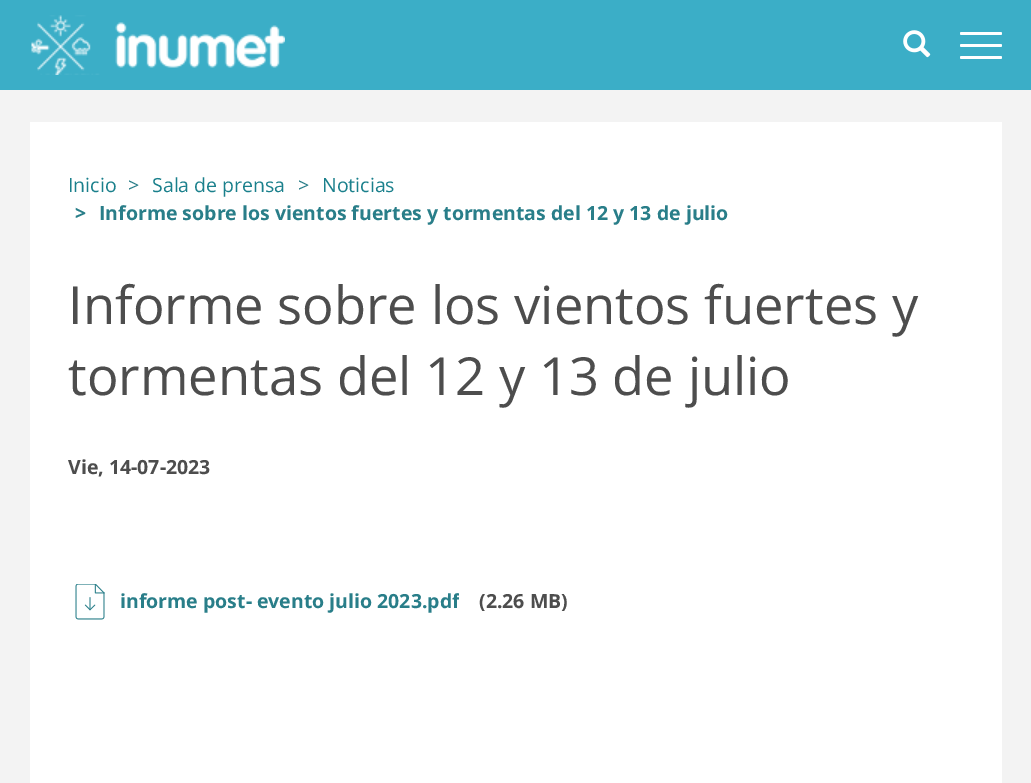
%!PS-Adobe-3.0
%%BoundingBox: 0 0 1031 783
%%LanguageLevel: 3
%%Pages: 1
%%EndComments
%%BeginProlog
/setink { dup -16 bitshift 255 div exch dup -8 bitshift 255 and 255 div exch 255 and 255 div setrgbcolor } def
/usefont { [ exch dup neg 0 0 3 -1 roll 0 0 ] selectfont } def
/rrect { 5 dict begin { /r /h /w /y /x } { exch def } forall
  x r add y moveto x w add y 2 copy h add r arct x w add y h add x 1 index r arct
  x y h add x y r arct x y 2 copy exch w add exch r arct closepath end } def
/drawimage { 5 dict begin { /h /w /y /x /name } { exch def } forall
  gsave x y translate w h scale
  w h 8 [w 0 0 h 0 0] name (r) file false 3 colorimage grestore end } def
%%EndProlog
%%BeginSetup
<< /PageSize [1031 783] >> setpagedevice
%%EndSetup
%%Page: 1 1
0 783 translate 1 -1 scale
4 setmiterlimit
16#F3F3F3 setink
0 0 1031 783 rectfill
16#3BAEC7 setink
0 0 1031 90 rectfill
(img1.raw) 31 15 254 60 drawimage
(img2.raw) 903 30 28 28 drawimage
16#FFFFFF setink
960 32 42 3 1.5 rrect fill
960 44 42 3 1.5 rrect fill
960 56 42 3 1.5 rrect fill
30 122 972 661 rectfill
/OpenSans-Regular 19.5 usefont
16#1A808C setink
68 192 moveto (Inicio) show
16#297E89 setink
128 192 moveto (>) show
16#1A808C setink
152 192 moveto (Sala de prensa) show
16#297E89 setink
298 192 moveto (>) show
16#1A808C setink
322 192 moveto (Noticias) show
/OpenSans-Bold 19.5 usefont
16#297E89 setink
75 220 moveto (>) show
99 220 moveto (Informe sobre los vientos fuertes y tormentas del 12 y 13 de julio) show
/OpenSans-Regular 52.5 usefont
16#4D4D4D setink
68 324 moveto (Informe sobre los vientos fuertes y) show
68 395 moveto (tormentas del 12 y 13 de julio) show
/OpenSans-Bold 19.5 usefont
68 474 moveto (Vie, 14-07-2023) show
(img3.raw) 75 584 30 36 drawimage
16#297E89 setink
120 608 moveto (informe post- evento julio 2023.pdf) show
16#4D4D4D setink
479 608 moveto (\(2.26 MB\)) show
16#FFFFFF setink
459 593 2 7 rectfill
showpage
%%EOF
